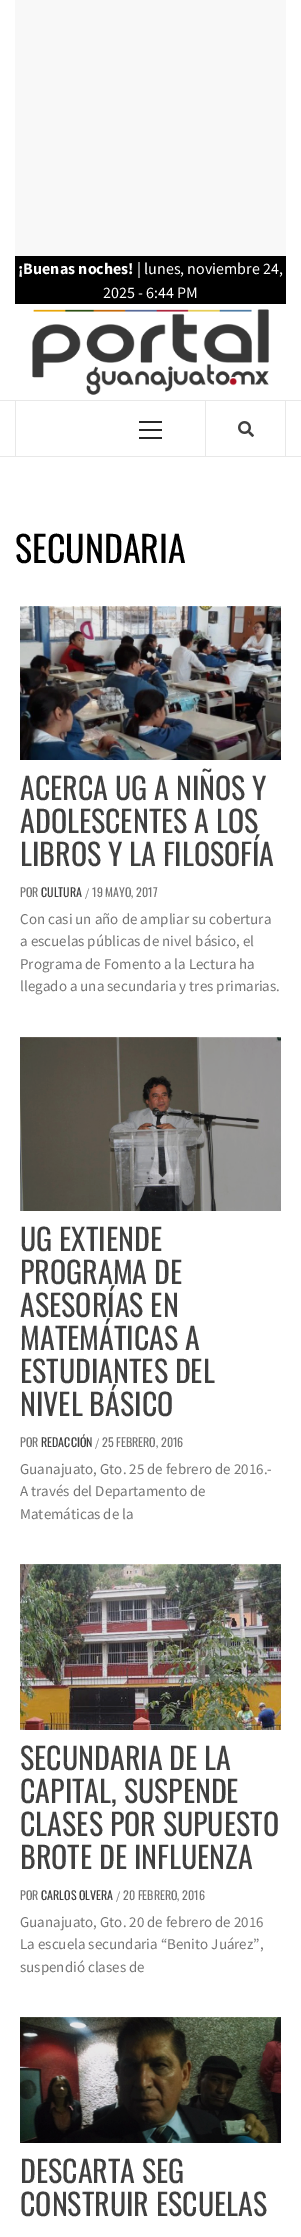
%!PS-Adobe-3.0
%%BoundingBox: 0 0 301 2237
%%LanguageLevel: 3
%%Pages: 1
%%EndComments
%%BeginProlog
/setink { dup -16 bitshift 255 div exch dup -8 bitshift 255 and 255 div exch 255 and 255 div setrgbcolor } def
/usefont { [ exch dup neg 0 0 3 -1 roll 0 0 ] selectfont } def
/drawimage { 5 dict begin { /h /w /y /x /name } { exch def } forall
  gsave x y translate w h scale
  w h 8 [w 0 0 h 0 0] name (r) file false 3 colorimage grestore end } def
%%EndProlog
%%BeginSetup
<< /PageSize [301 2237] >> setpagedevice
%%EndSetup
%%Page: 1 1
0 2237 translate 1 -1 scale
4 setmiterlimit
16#FFFFFF setink
0 0 301 2237 rectfill
16#F8F8F8 setink
15 0 271 256 rectfill
16#000000 setink
15 256 271 48 rectfill
/SourceSansPro-Bold 16 usefont
16#FFFFFF setink
18 274 moveto (¡Buenas noches!) show
/SourceSansPro-Regular 16 usefont
137 274 moveto (| lunes, noviembre 24,) show
103 298 moveto (2025 - 6:44 PM) show
(img1.raw) 32 309 237 86 drawimage
[
    [0 400 301 1 16#E8E8E8]
    [0 456 301 1 16#E8E8E8]
    [285 401 1 55 16#E8E8E8]
    [15 401 1 55 16#E8E8E8]
    [139 429 23 2 16#282828]
    [139 421 23 2 16#282828]
    [139 437 23 2 16#282828]
    [205 401 1 55 16#E8E8E8]
] { aload pop setink rectfill } forall
(img2.raw) 238 421 16 16 drawimage
/Oswald-Regular 36 usefont
16#000000 setink
15 563 moveto (SECUNDARIA) show
(img3.raw) 20 606 261 154 drawimage
/Oswald-Regular 30 usefont
16#404040 setink
[
    [(ACERCA UG A NIÑOS Y) 20 800]
    [(ADOLESCENTES A LOS) 20 833]
    [(LIBROS Y LA FILOSOFÍA) 20 866]
] { aload pop moveto show } forall
/Oswald-Regular 12 usefont
16#757575 setink
20 897 moveto (POR) show
16#404040 setink
41 897 moveto (CULTURA) show
/SourceSansPro-Regular 12 usefont
16#757575 setink
85 897 moveto (/) show
/Oswald-Regular 12 usefont
92 897 moveto (19 MAYO, 2017) show
/SourceSansPro-Regular 15 usefont
[
    [(Con casi un año de ampliar su cobertura) 20 924]
    [(a escuelas públicas de nivel básico, el) 20 946]
    [(Programa de Fomento a la Lectura ha) 20 969]
    [(llegado a una secundaria y tres primarias.) 20 991]
] { aload pop moveto show } forall
(img4.raw) 20 1037 261 174 drawimage
/Oswald-Regular 30 usefont
16#404040 setink
[
    [(UG EXTIENDE) 20 1251]
    [(PROGRAMA DE) 20 1284]
    [(ASESORÍAS EN) 20 1317]
    [(MATEMÁTICAS A) 20 1350]
    [(ESTUDIANTES DEL) 20 1383]
    [(NIVEL BÁSICO) 20 1416]
] { aload pop moveto show } forall
/Oswald-Regular 12 usefont
16#757575 setink
20 1447 moveto (POR) show
16#404040 setink
41 1447 moveto (REDACCIÓN) show
/SourceSansPro-Regular 12 usefont
16#757575 setink
95 1447 moveto (/) show
/Oswald-Regular 12 usefont
102 1447 moveto (25 FEBRERO, 2016) show
/SourceSansPro-Regular 15 usefont
[
    [(Guanajuato, Gto. 25 de febrero de 2016.-) 20 1474]
    [(A través del Departamento de) 20 1496]
    [(Matemáticas de la) 20 1519]
] { aload pop moveto show } forall
(img5.raw) 20 1564 261 166 drawimage
/Oswald-Regular 30 usefont
16#404040 setink
[
    [(SECUNDARIA DE LA) 20 1770]
    [(CAPITAL, SUSPENDE) 20 1803]
    [(CLASES POR SUPUESTO) 20 1836]
    [(BROTE DE INFLUENZA) 20 1869]
] { aload pop moveto show } forall
/Oswald-Regular 12 usefont
16#757575 setink
20 1900 moveto (POR) show
16#404040 setink
41 1900 moveto (CARLOS OLVERA) show
/SourceSansPro-Regular 12 usefont
16#757575 setink
116 1900 moveto (/) show
/Oswald-Regular 12 usefont
123 1900 moveto (20 FEBRERO, 2016) show
/SourceSansPro-Regular 15 usefont
[
    [(Guanajuato, Gto. 20 de febrero de 2016) 20 1927]
    [(La escuela secundaria “Benito Juárez”,) 20 1949]
    [(suspendió clases de) 20 1972]
] { aload pop moveto show } forall
(img6.raw) 20 2017 261 126 drawimage
/Oswald-Regular 30 usefont
16#404040 setink
20 2183 moveto (DESCARTA SEG) show
20 2216 moveto (CONSTRUIR ESCUELAS) show
showpage
%%EOF
